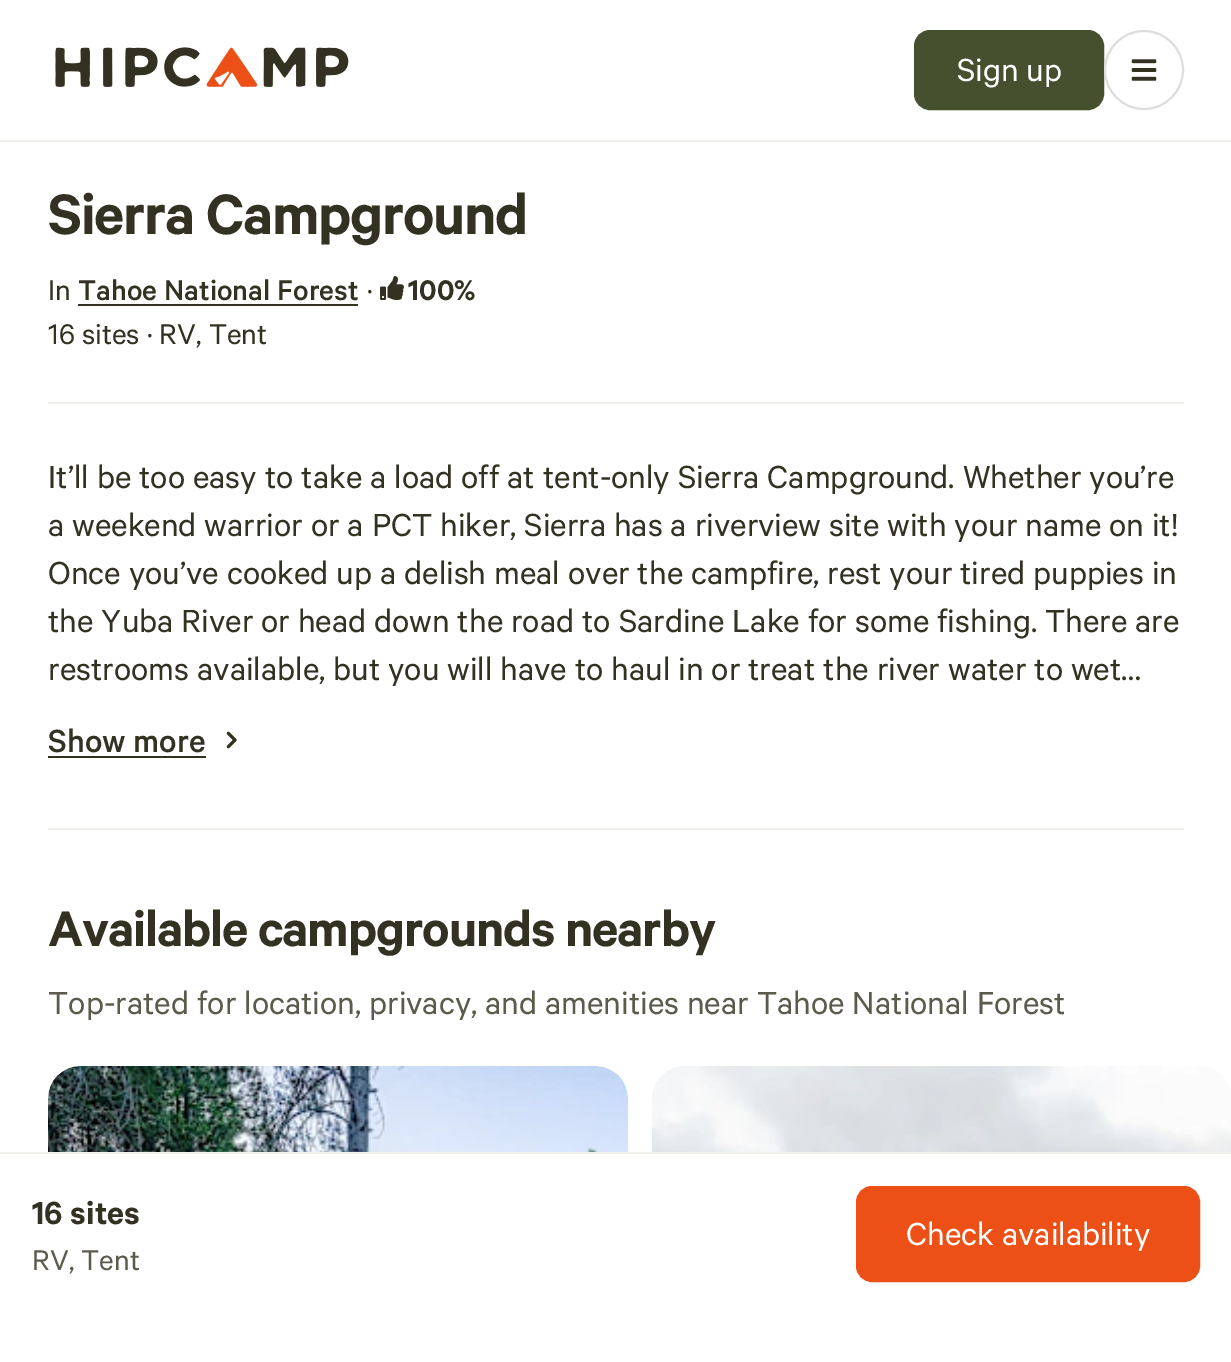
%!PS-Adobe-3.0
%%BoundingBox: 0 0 1231 1362
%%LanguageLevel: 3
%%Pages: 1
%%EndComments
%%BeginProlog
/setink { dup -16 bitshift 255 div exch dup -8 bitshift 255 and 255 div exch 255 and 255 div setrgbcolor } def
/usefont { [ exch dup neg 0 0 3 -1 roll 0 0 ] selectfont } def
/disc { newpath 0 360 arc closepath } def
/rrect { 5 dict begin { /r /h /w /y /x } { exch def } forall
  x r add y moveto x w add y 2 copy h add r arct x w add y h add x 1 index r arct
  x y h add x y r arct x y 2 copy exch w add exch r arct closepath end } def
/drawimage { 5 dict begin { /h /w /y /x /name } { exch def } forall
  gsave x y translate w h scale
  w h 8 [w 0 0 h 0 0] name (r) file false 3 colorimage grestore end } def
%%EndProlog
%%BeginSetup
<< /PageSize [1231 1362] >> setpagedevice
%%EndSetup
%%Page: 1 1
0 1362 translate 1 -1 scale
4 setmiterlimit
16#FFFFFF setink
0 0 1231 1362 rectfill
16#F0EFEC setink
0 140 1231 2 rectfill
(img1.raw) 55 47 294 40 drawimage
16#464F2E setink
915 31 188 78 15 rrect gsave fill grestore
2 setlinewidth
stroke
/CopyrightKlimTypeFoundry-Regular 36 usefont
16#FFFFFF setink
957 81 moveto (Sign up) show
16#DEDEDE setink
1144 70 39 disc stroke
(img2.raw) 1131 59 26 22 drawimage
/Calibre-SemiBold 64 usefont
16#333121 setink
48 234 moveto -1.25 0 (Sierra Campground) ashow
/CopyrightKlimTypeFoundry-Regular 32 usefont
48 300 moveto (In) show
/Calibre-Medium 32 usefont
78 300 moveto (Tahoe National Forest) show
78 304 280 2 rectfill
/CopyrightKlimTypeFoundry-Regular 32 usefont
367 300 moveto (·) show
(img3.raw) 380 276 24 24 drawimage
/Calibre-SemiBold 32 usefont
408 300 moveto (100%) show
/CopyrightKlimTypeFoundry-Regular 32 usefont
48 344 moveto (16 sites · RV, Tent) show
16#F0EFEC setink
48 402 1136 2 rectfill
/CopyrightKlimTypeFoundry-Regular 36 usefont
16#333121 setink
[
    [(It’ll be too easy to take a load off at tent-only Sierra Campground. Whether you’re) 48 488]
    [(a weekend warrior or a PCT hiker, Sierra has a riverview site with your name on it!) 48 536]
    [(Once you’ve cooked up a delish meal over the campfire, rest your tired puppies in) 48 584]
    [(the Yuba River or head down the road to Sardine Lake for some fishing. There are) 48 632]
    [(restrooms available, but you will have to haul in or treat the river water to wet…) 48 680]
] { aload pop moveto show } forall
/Calibre-Medium 36 usefont
48 752 moveto (Show more) show
48 756 158 2 rectfill
(img4.raw) 226 731 11 18 drawimage
16#F0EFEC setink
48 828 1136 2 rectfill
/Calibre-SemiBold 56 usefont
16#333121 setink
48 946 moveto -1.1 0 (Available campgrounds nearby) ashow
/CopyrightKlimTypeFoundry-Regular 36 usefont
16#5C5A4D setink
48 1014 moveto (Top-rated for location, privacy, and amenities near Tahoe National Forest) show
(img5.raw) 48 1066 580 86 drawimage
(img6.raw) 652 1066 579 86 drawimage
16#F0EFEC setink
0 1152 1231 2 rectfill
/Calibre-SemiBold 36 usefont
16#333121 setink
32 1224 moveto (16 sites) show
/CopyrightKlimTypeFoundry-Regular 32 usefont
16#5C5A4D setink
32 1270 moveto (RV, Tent) show
16#EC5017 setink
857 1187 342 94 15 rrect gsave fill grestore
stroke
/CopyrightKlimTypeFoundry-Regular 36 usefont
16#FFFFFF setink
906 1245 moveto (Check availability) show
showpage
%%EOF
